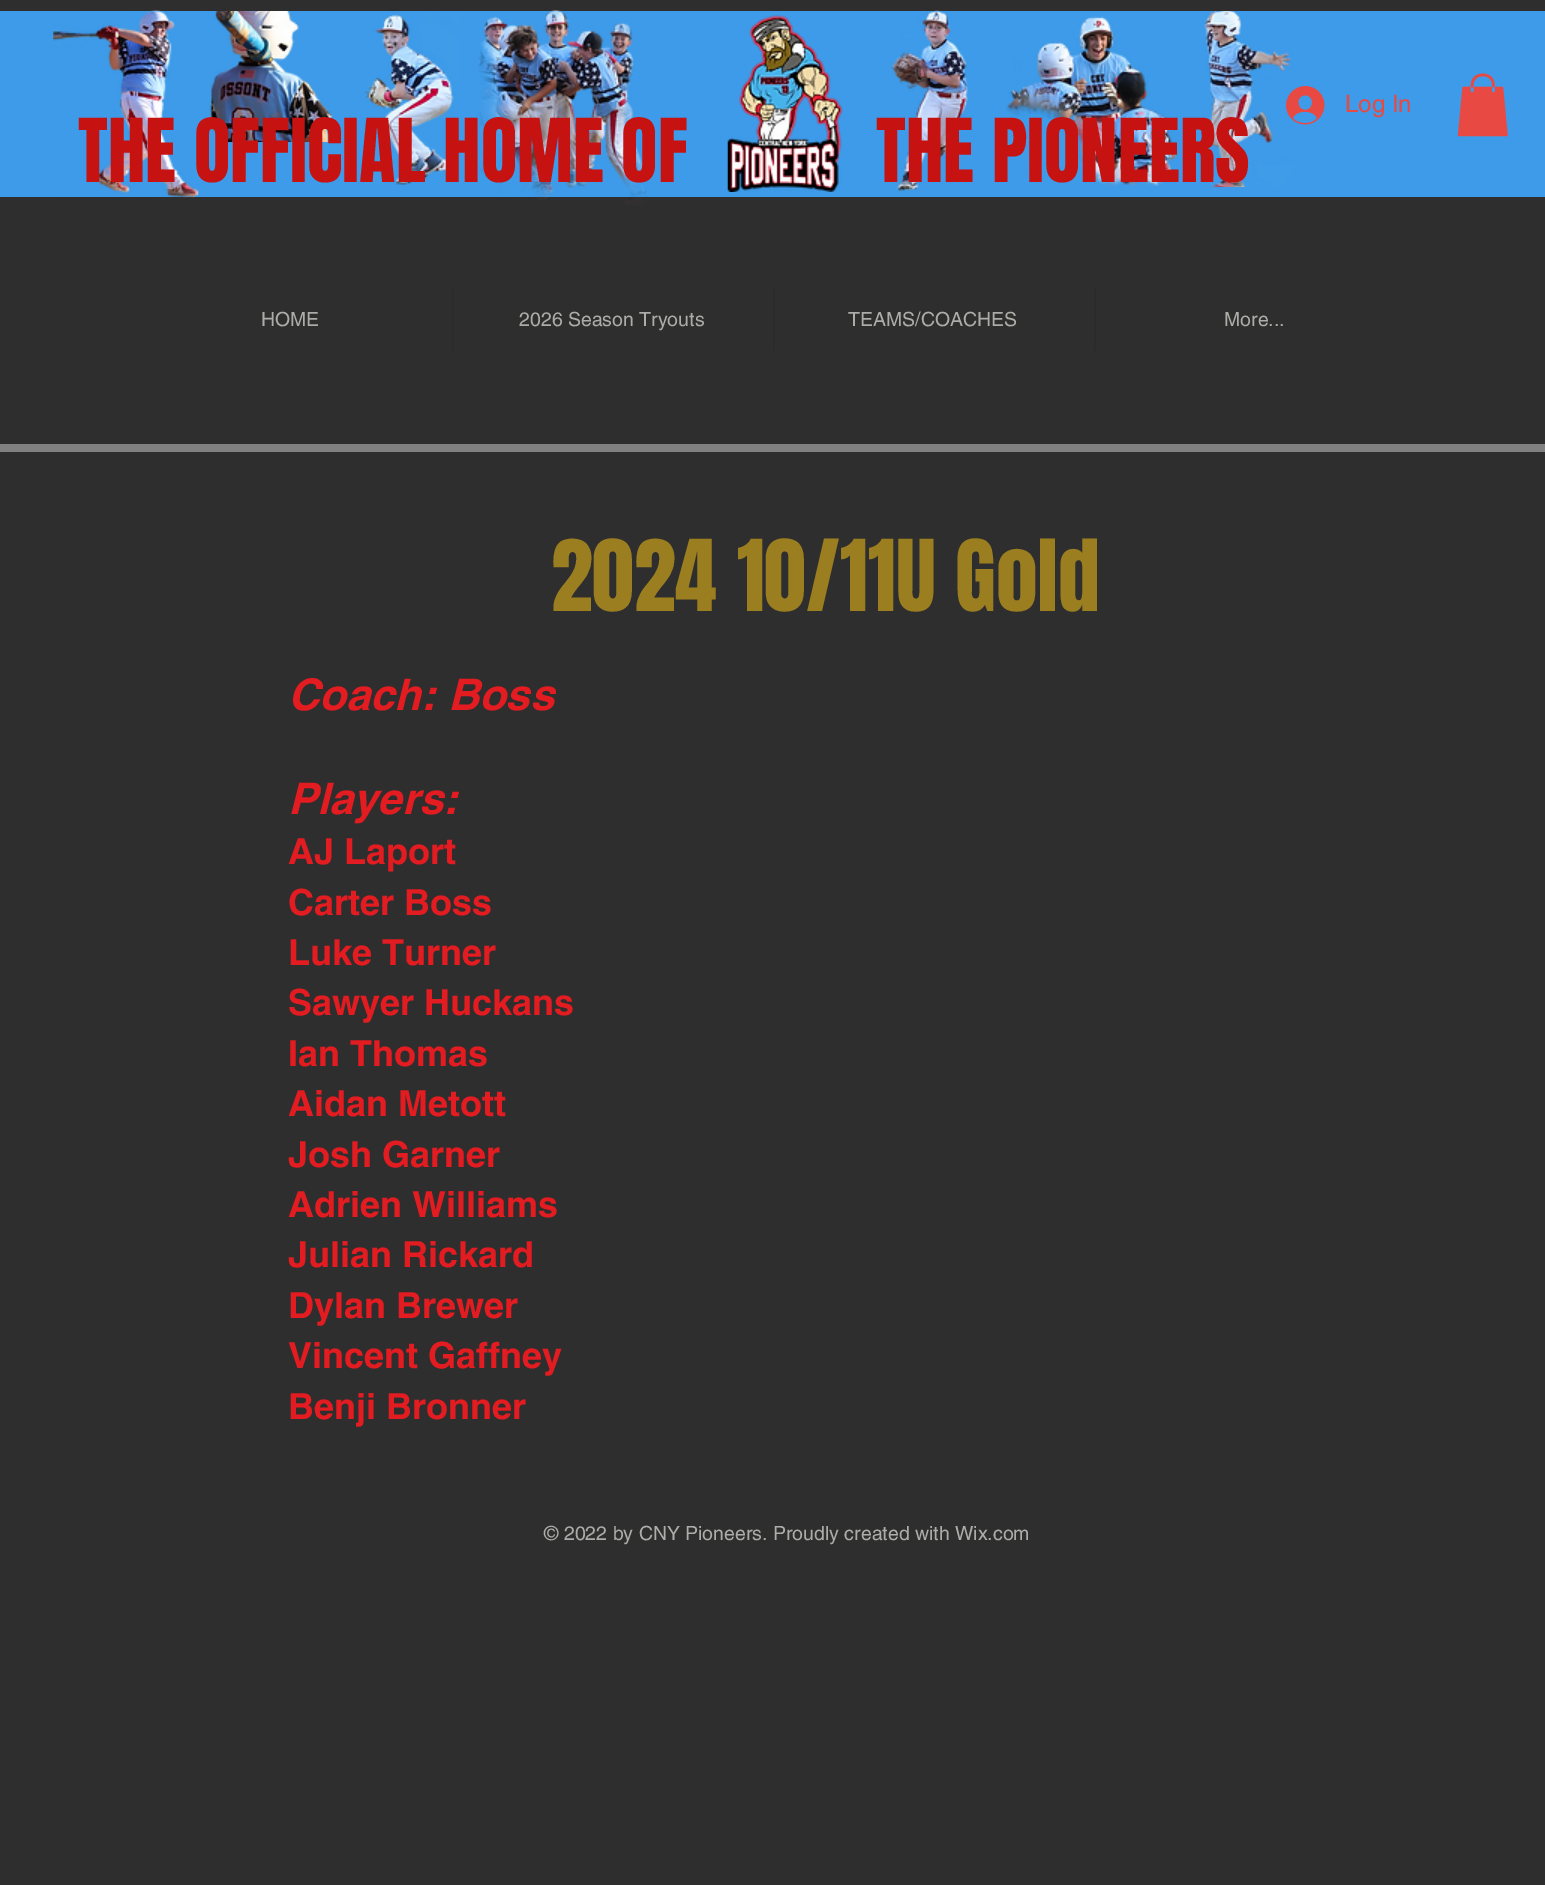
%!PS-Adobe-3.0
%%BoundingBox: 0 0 1545 1885
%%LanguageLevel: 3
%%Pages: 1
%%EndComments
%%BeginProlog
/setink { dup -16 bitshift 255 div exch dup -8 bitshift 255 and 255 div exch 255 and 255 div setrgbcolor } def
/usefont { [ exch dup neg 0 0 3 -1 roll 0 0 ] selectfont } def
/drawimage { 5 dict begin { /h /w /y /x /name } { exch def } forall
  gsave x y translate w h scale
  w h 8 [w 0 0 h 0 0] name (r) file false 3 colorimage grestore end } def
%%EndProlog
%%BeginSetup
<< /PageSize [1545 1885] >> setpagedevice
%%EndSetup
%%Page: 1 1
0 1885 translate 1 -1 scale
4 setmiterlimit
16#2F2E2E setink
0 0 1545 1885 rectfill
16#3D9BE9 setink
0 11 1545 186 rectfill
(img1.raw) 53 10 147 188 drawimage
(img2.raw) 478 9 171 196 drawimage
(img3.raw) 891 10 77 181 drawimage
(img4.raw) 209 11 124 132 drawimage
(img5.raw) 364 14 95 171 drawimage
(img6.raw) 727 15 116 177 drawimage
(img7.raw) 1006 16 171 170 drawimage
(img8.raw) 1204 11 88 177 drawimage
(img9.raw) 1286 86 39 39 drawimage
/helvetica-Regular 24 usefont
16#E84A43 setink
1345 112 moveto (Log In) show
(img10.raw) 1457 73 51 64 drawimage
/Anton-Regular 75 usefont
16#C71212 setink
78 182 moveto (THE OFFICIAL HOME OF) show
876 182 moveto (THE PIONEERS) show
/helvetica-Regular 19.5 usefont
16#ACACA9 setink
261 326 moveto (HOME) show
16#2B2B2A setink
452 288 2 63 rectfill
16#ACACA9 setink
519 326 moveto (2026 Season Tryouts) show
16#2B2B2A setink
773 288 2 63 rectfill
16#ACACA9 setink
848 326 moveto (TEAMS/COACHES) show
16#2B2B2A setink
1094 288 2 63 rectfill
16#ACACA9 setink
1224 326 moveto (More...) show
16#828181 setink
0 444 1545 8 rectfill
/Anton-Regular 84 usefont
16#9B7E1F setink
551 611 moveto (2024 10/11U Gold) show
/helvetica-BoldItalic 43.5 usefont
16#E21C21 setink
288 710 moveto (Coach: Boss) show
288 814 moveto (Players:) show
/helvetica-Bold 36 usefont
[
    [(AJ Laport) 288 864]
    [(Carter Boss) 288 915]
    [(Luke Turner) 288 965]
    [(Sawyer Huckans) 288 1015]
    [(Ian Thomas) 288 1066]
    [(Aidan Metott) 288 1116]
    [(Josh Garner) 288 1167]
    [(Adrien Williams) 288 1217]
    [(Julian Rickard) 288 1267]
    [(Dylan Brewer) 288 1318]
    [(Vincent Gaffney) 288 1368]
    [(Benji Bronner) 288 1419]
] { aload pop moveto show } forall
/helvetica-Regular 19.5 usefont
16#ACACA9 setink
544 1540 moveto (© 2022 by CNY Pioneers. Proudly created with Wix.com) show
showpage
%%EOF
